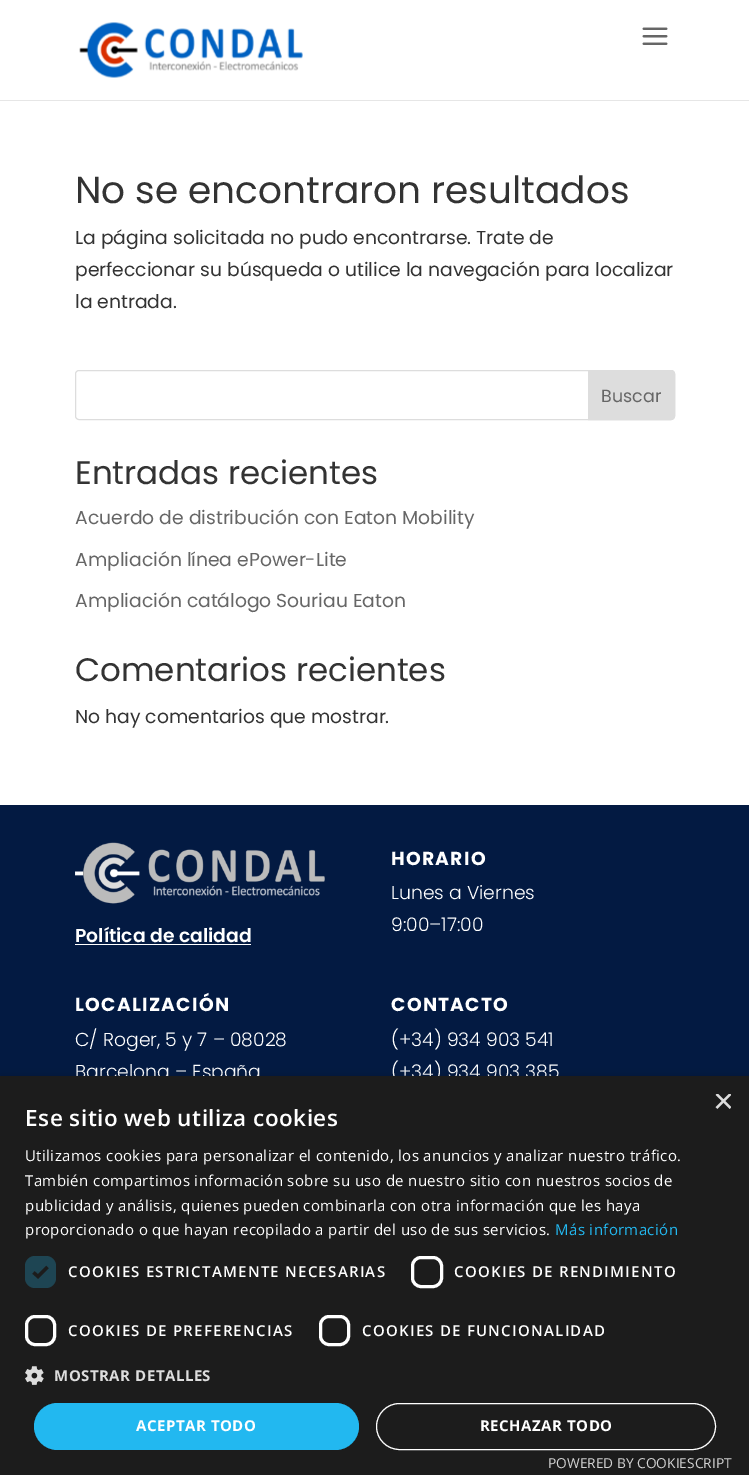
%!PS-Adobe-3.0
%%BoundingBox: 0 0 749 1475
%%LanguageLevel: 3
%%Pages: 1
%%EndComments
%%BeginProlog
/setink { dup -16 bitshift 255 div exch dup -8 bitshift 255 and 255 div exch 255 and 255 div setrgbcolor } def
/usefont { [ exch dup neg 0 0 3 -1 roll 0 0 ] selectfont } def
/setalpha { dup .setfillconstantalpha .setstrokeconstantalpha } def
/rrect { 5 dict begin { /r /h /w /y /x } { exch def } forall
  x r add y moveto x w add y 2 copy h add r arct x w add y h add x 1 index r arct
  x y h add x y r arct x y 2 copy exch w add exch r arct closepath end } def
/softshadow { 12 dict begin { /a /b /q /h /w /y /x } { exch def } forall gsave /was 0 def
  9 -2 -9 { dup b mul 4 div /e exch def 1 sub .425 mul 2.718 exch exp 1 add a .99 .min exch div /now exch def
    1 1 now sub 1 was sub div sub setalpha /was now def
    w h .min e 2 mul add 0 gt { x e sub y e sub w e 2 mul add h e 2 mul add
      q e add b .6 mul add w h .min 2 div e add .min 0 .max rrect fill } if } for grestore end } def
/drawimage { 5 dict begin { /h /w /y /x /name } { exch def } forall
  gsave x y translate w h scale
  w h 8 [w 0 0 h 0 0] name (r) file false 3 colorimage grestore end } def
%%EndProlog
%%BeginSetup
<< /PageSize [749 1475] /PageUsesTransparency true >> setpagedevice
%%EndSetup
%%Page: 1 1
0 .pushpdf14devicefilter
0 1475 translate 1 -1 scale
4 setmiterlimit
16#FFFFFF setink
0 0 749 1475 rectfill
16#E6E6E6 setink
0 100 749 1 rectfill
(img1.raw) 79 22 224 56 drawimage
(img2.raw) 642 27 26 18 drawimage
/Poppins-Regular 37.5 usefont
16#333333 setink
75 203 moveto (No se encontraron resultados) show
/Poppins-Regular 18.75 usefont
[
    [(La página solicitada no pudo encontrarse. Trate de) 75 244]
    [(perfeccionar su búsqueda o utilice la navegación para localizar) 75 276]
    [(la entrada.) 75 308]
] { aload pop moveto show } forall
16#DDDDDD setink
75.5 370.5 599 49 3.5 rrect stroke
588.5 370.5 moveto 671 370.5 lineto 673 370.5 674.5 372 674.5 374 curveto 674.5 416 lineto 674.5 418 673 419.5 671 419.5 curveto 588.5 419.5 lineto closepath gsave fill grestore
stroke
/Poppins-Regular 17.5 usefont
16#666666 setink
601 402 moveto (Buscar) show
/Poppins-Regular 32.5 usefont
16#333333 setink
75 484 moveto (Entradas recientes) show
/Poppins-Regular 18.75 usefont
16#666666 setink
[
    [(Acuerdo de distribución con Eaton Mobility) 75 524]
    [(Ampliación línea ePower-Lite) 75 566]
    [(Ampliación catálogo Souriau Eaton) 75 607]
] { aload pop moveto show } forall
/Poppins-Regular 32.5 usefont
16#333333 setink
75 681 moveto (Comentarios recientes) show
/Poppins-Regular 18.75 usefont
75 723 moveto (No hay comentarios que mostrar.) show
16#031A42 setink
0 805 749 271 rectfill
/Poppins-Bold 18.75 usefont
16#FFFFFF setink
391 865 moveto 1.25 0 (HORARIO) ashow
/Poppins-Light 18.75 usefont
391 899 moveto (Lunes a Viernes) show
391 931 moveto (9:00–17:00) show
(img3.raw) 75 842 250 62 drawimage
/Poppins-SemiBold 18.75 usefont
75 942 moveto (Política de calidad) show
75 944 176 1 rectfill
/Poppins-Bold 18.75 usefont
75 1011 moveto 1.25 0 (LOCALIZACIÓN) ashow
/Poppins-Light 18.75 usefont
75 1046 moveto (C/ Roger, 5 y 7 – 08028) show
75 1078 moveto (Barcelona – España) show
/Poppins-Bold 18.75 usefont
391 1011 moveto 1.25 0 (CONTACTO) ashow
/Poppins-Light 18.75 usefont
391 1046 moveto (\(+34\) 934 903 541) show
391 1078 moveto (\(+34\) 934 903 385) show
16#000000 setink
1 1079 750 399 0 5 0.35 softshadow
16#1C1C1C setink
0 1076 749 399 rectfill
gsave
713 1094 18 19 rectclip
/LiberationSans-Regular 36 usefont
16#DDDDDD setink
713 1113 moveto (×) show
grestore
/OpenSans-SemiBold 22.5 usefont
16#FFFFFF setink
25 1126 moveto 0.5 0 (Ese sitio web utiliza cookies) ashow
/OpenSans-Regular 15 usefont
25 1161 moveto 0.38 0 (Utilizamos cookies para personalizar el contenido, los anuncios y analizar nuestro tráfico.) ashow
25 1186 moveto 0.38 0 (También compartimos información sobre su uso de nuestro sitio con nuestros socios de) ashow
25 1211 moveto 0.38 0 (publicidad y análisis, quienes pueden combinarla con otra información que les haya) ashow
25 1235 moveto 0.38 0 (proporcionado o que hayan recopilado a partir del uso de sus servicios.) ashow
16#22B8F0 setink
555 1235 moveto 0.38 0 (Más información) ashow
16#1E4553 setink
25 1256 31 32 10 rrect fill
16#1C1C1C setink
3.3 setlinewidth
33.5 1272.5 moveto 38 1276.5 lineto 47.5 1267 lineto stroke
/OpenSans-SemiBold 15 usefont
16#FFFFFF setink
68 1277 moveto 1.25 0 (COOKIES ESTRICTAMENTE NECESARIAS) ashow
3 setlinewidth
412.5 1257.5 29 29 8.5 rrect stroke
454 1277 moveto 1.25 0 (COOKIES DE RENDIMIENTO) ashow
26.5 1316.5 28 28 8.5 rrect stroke
68 1336 moveto 1.25 0 (COOKIES DE PREFERENCIAS) ashow
320.5 1316.5 28 28 8.5 rrect stroke
362 1336 moveto 1.25 0 (COOKIES DE FUNCIONALIDAD) ashow
(img4.raw) 25 1366 19 19 drawimage
/OpenSans-Bold 15 usefont
16#DDDDDD setink
54 1381 moveto 0.5 0 (MOSTRAR DETALLES) ashow
16#22B8F0 setink
34 1403 325 47 23.5 rrect fill
16#FFFFFF setink
136 1431 moveto 0.5 0 (ACEPTAR TODO) ashow
1 setlinewidth
376.5 1403.5 339 46 23 rrect stroke
480 1431 moveto 0.5 0 (RECHAZAR TODO) ashow
/OpenSans-Regular 13.75 usefont
16#D2D2D2 setink
548 1468 moveto (POWERED BY COOKIESCRIPT) show
.poppdf14devicefilter showpage
%%EOF
